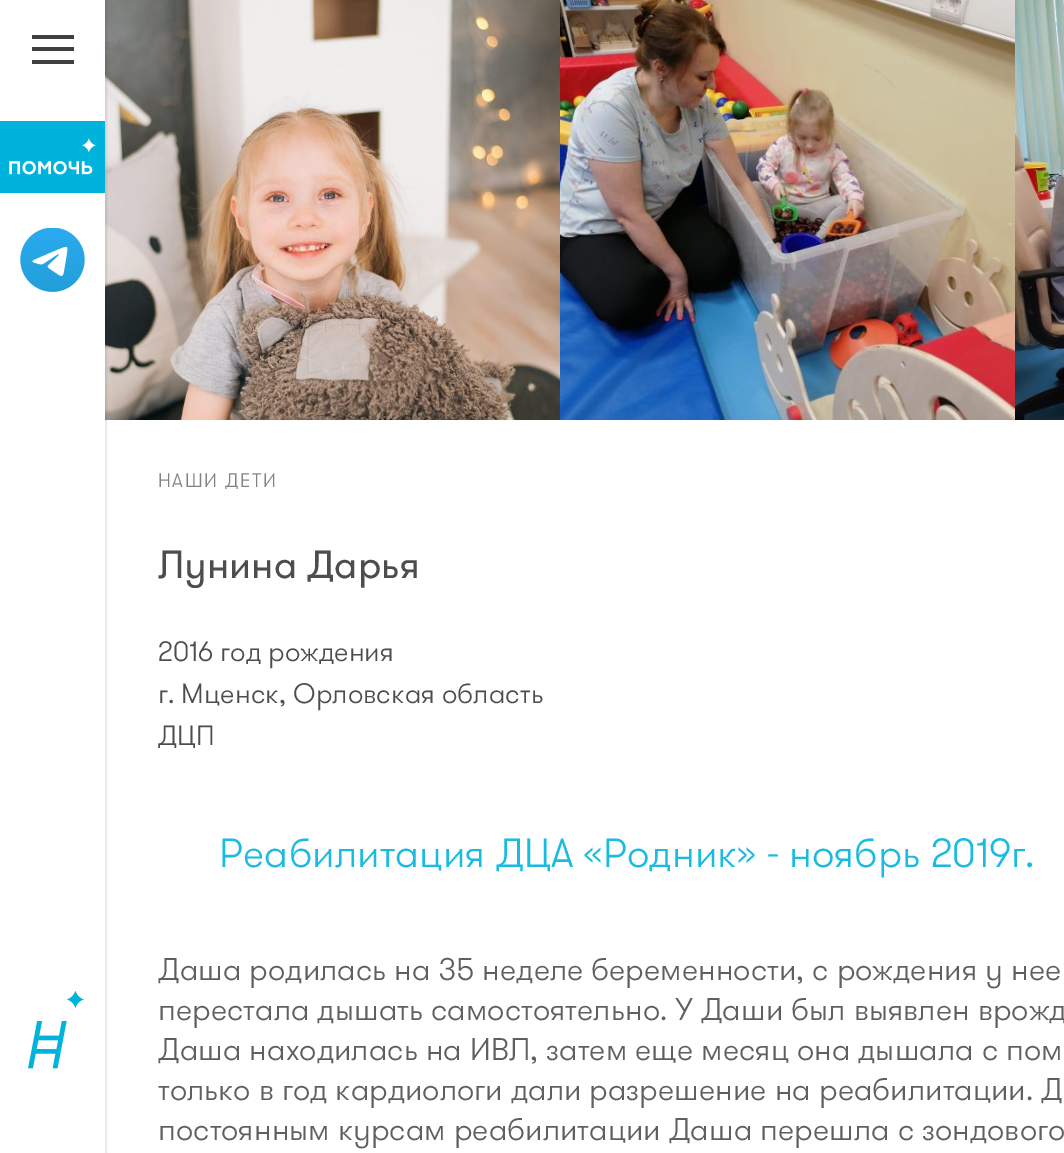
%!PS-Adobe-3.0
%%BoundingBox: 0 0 1064 1153
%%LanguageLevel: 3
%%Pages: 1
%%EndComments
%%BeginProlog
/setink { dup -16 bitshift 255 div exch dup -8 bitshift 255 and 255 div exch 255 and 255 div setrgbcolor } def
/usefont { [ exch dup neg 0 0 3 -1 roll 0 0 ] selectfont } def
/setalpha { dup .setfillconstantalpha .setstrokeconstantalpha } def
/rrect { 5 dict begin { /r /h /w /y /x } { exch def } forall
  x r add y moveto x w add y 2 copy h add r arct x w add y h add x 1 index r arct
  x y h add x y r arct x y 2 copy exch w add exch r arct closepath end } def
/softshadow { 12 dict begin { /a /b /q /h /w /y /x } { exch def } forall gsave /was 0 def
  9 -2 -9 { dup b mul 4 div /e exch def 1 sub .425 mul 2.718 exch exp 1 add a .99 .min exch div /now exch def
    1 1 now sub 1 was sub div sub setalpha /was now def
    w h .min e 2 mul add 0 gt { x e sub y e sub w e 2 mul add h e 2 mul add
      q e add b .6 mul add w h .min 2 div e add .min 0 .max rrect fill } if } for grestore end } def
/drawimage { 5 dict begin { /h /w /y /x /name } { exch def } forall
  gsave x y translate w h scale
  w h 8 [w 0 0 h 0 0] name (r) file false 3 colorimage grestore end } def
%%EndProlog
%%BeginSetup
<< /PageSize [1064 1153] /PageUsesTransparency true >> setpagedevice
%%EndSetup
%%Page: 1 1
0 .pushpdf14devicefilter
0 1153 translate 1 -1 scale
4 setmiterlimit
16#FFFFFF setink
0 0 1064 1153 rectfill
(img4.raw) 105 0 455 420 drawimage
gsave
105 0 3 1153 rectclip
16#000000 setink
2 0 105 1153 0 1 0.1 softshadow
grestore
[
    [32 47 42 4 16#404040]
    [32 35 42 4 16#404040]
    [32 60 42 4 16#404040]
    [0 121 105 72 16#00B3DC]
] { aload pop setink rectfill } forall
(img1.raw) 9 138 87 37 drawimage
(img2.raw) 20 228 65 64 drawimage
(img3.raw) 28 991 56 78 drawimage
(img5.raw) 560 0 455 420 drawimage
(img6.raw) 1015 0 49 420 drawimage
/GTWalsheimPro-Light 19.5 usefont
16#828282 setink
158 487 moveto 1.5 0 (НАШИ ДЕТИ) ashow
/GTWalsheimPro-Regular 39.25 usefont
16#4D4D4D setink
158 578 moveto (Лунина Дарья) show
/GTWalsheimPro-Light 28 usefont
[
    [(2016 год рождения) 158 661]
    [(г. Мценск, Орловская область) 158 703]
    [(ДЦП) 158 745]
] { aload pop moveto show } forall
/GTWalsheimPro-Light 40.75 usefont
16#1ABBE0 setink
219 867 moveto (Реабилитация ДЦА «Родник» - ноябрь 2019г.) show
/GTWalsheimPro-Light 31.35 usefont
16#5F5F5F setink
[
    [(Даша родилась на 35 неделе беременности, с рождения у нее) 158 980]
    [(перестала дышать самостоятельно. У Даши был выявлен врожд) 158 1020]
    [(Даша находилась на ИВЛ, затем еще месяц она дышала с пом) 158 1060]
    [(только в год кардиологи дали разрешение на реабилитации. Д) 158 1100]
    [(постоянным курсам реабилитации Даша перешла с зондового) 158 1140]
] { aload pop moveto show } forall
.poppdf14devicefilter showpage
%%EOF
